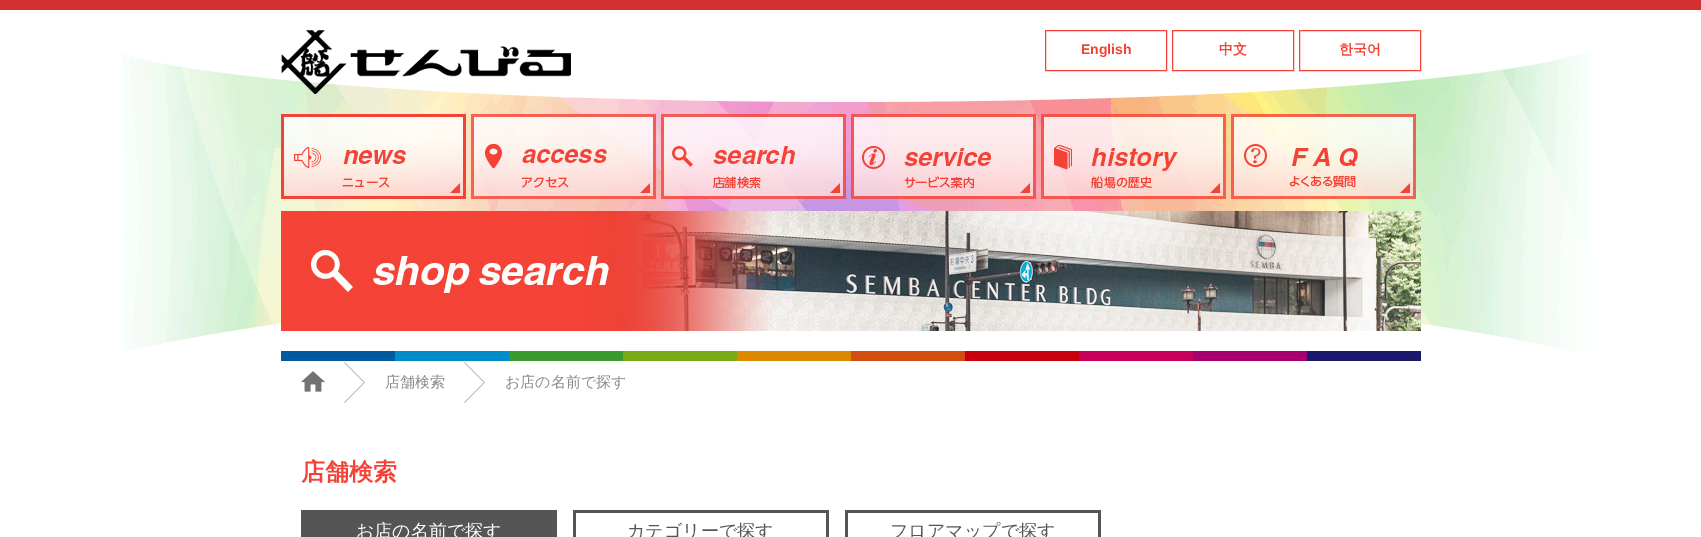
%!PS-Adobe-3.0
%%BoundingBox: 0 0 1701 537
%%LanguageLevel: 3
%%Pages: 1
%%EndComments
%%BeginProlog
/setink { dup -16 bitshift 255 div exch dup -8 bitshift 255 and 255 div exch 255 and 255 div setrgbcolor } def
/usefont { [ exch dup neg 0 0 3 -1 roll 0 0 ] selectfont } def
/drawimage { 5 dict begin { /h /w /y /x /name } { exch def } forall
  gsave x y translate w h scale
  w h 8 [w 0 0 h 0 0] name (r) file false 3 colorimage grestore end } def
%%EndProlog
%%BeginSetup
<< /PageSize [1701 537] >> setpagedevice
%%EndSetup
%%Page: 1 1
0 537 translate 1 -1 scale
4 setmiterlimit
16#FFFFFF setink
0 0 1701 537 rectfill
16#D32F2F setink
0 0 1701 10 rectfill
(img1.raw) 121 51 1470 300 drawimage
(img2.raw) 281 30 290 64 drawimage
16#F44336 setink
1045.5 30.5 121 40 rectstroke
/LiberationSans-Bold 14 usefont
1081 54 moveto (English) show
1172.5 30.5 121 40 rectstroke
/WenQuanYiZenHei-Bold 14 usefont
1219 54 moveto (中文) show
1299.5 30.5 121 40 rectstroke
1339 54 moveto (한국어) show
(img3.raw) 281 114 185 85 drawimage
(img4.raw) 471 114 185 85 drawimage
(img5.raw) 661 114 185 85 drawimage
(img6.raw) 851 114 185 85 drawimage
(img7.raw) 1041 114 185 85 drawimage
(img8.raw) 1231 114 185 85 drawimage
(img9.raw) 281 211 1140 120 drawimage
(img10.raw) 281 351 1140 10 drawimage
(img11.raw) 344 362 21 41 drawimage
(img12.raw) 301 371 24 21 drawimage
(img11.raw) 464 362 21 41 drawimage
/WenQuanYiZenHei-Medium 15 usefont
16#8A8A8A setink
385 387 moveto (店舗検索) show
505 387 moveto (お店の名前で探す) show
/WenQuanYiZenHei-Bold 24 usefont
16#F44336 setink
301 480 moveto (店舗検索) show
[
    [301 510 256 3 16#555555]
    [554 510 3 27 16#555555]
    [301 510 3 27 16#555555]
    [304 513 250 24 16#555555]
] { aload pop setink rectfill } forall
/WenQuanYiZenHei-Medium 18 usefont
16#FFFFFF setink
356 537 moveto (お店の名前で探す) show
[
    [573 510 256 3 16#555555]
    [826 510 3 27 16#555555]
    [573 510 3 27 16#555555]
] { aload pop setink rectfill } forall
627 537 moveto (カテゴリーで探す) show
[
    [845 510 256 3 16#555555]
    [1098 510 3 27 16#555555]
    [845 510 3 27 16#555555]
] { aload pop setink rectfill } forall
890 537 moveto (フロアマップで探す) show
showpage
%%EOF
